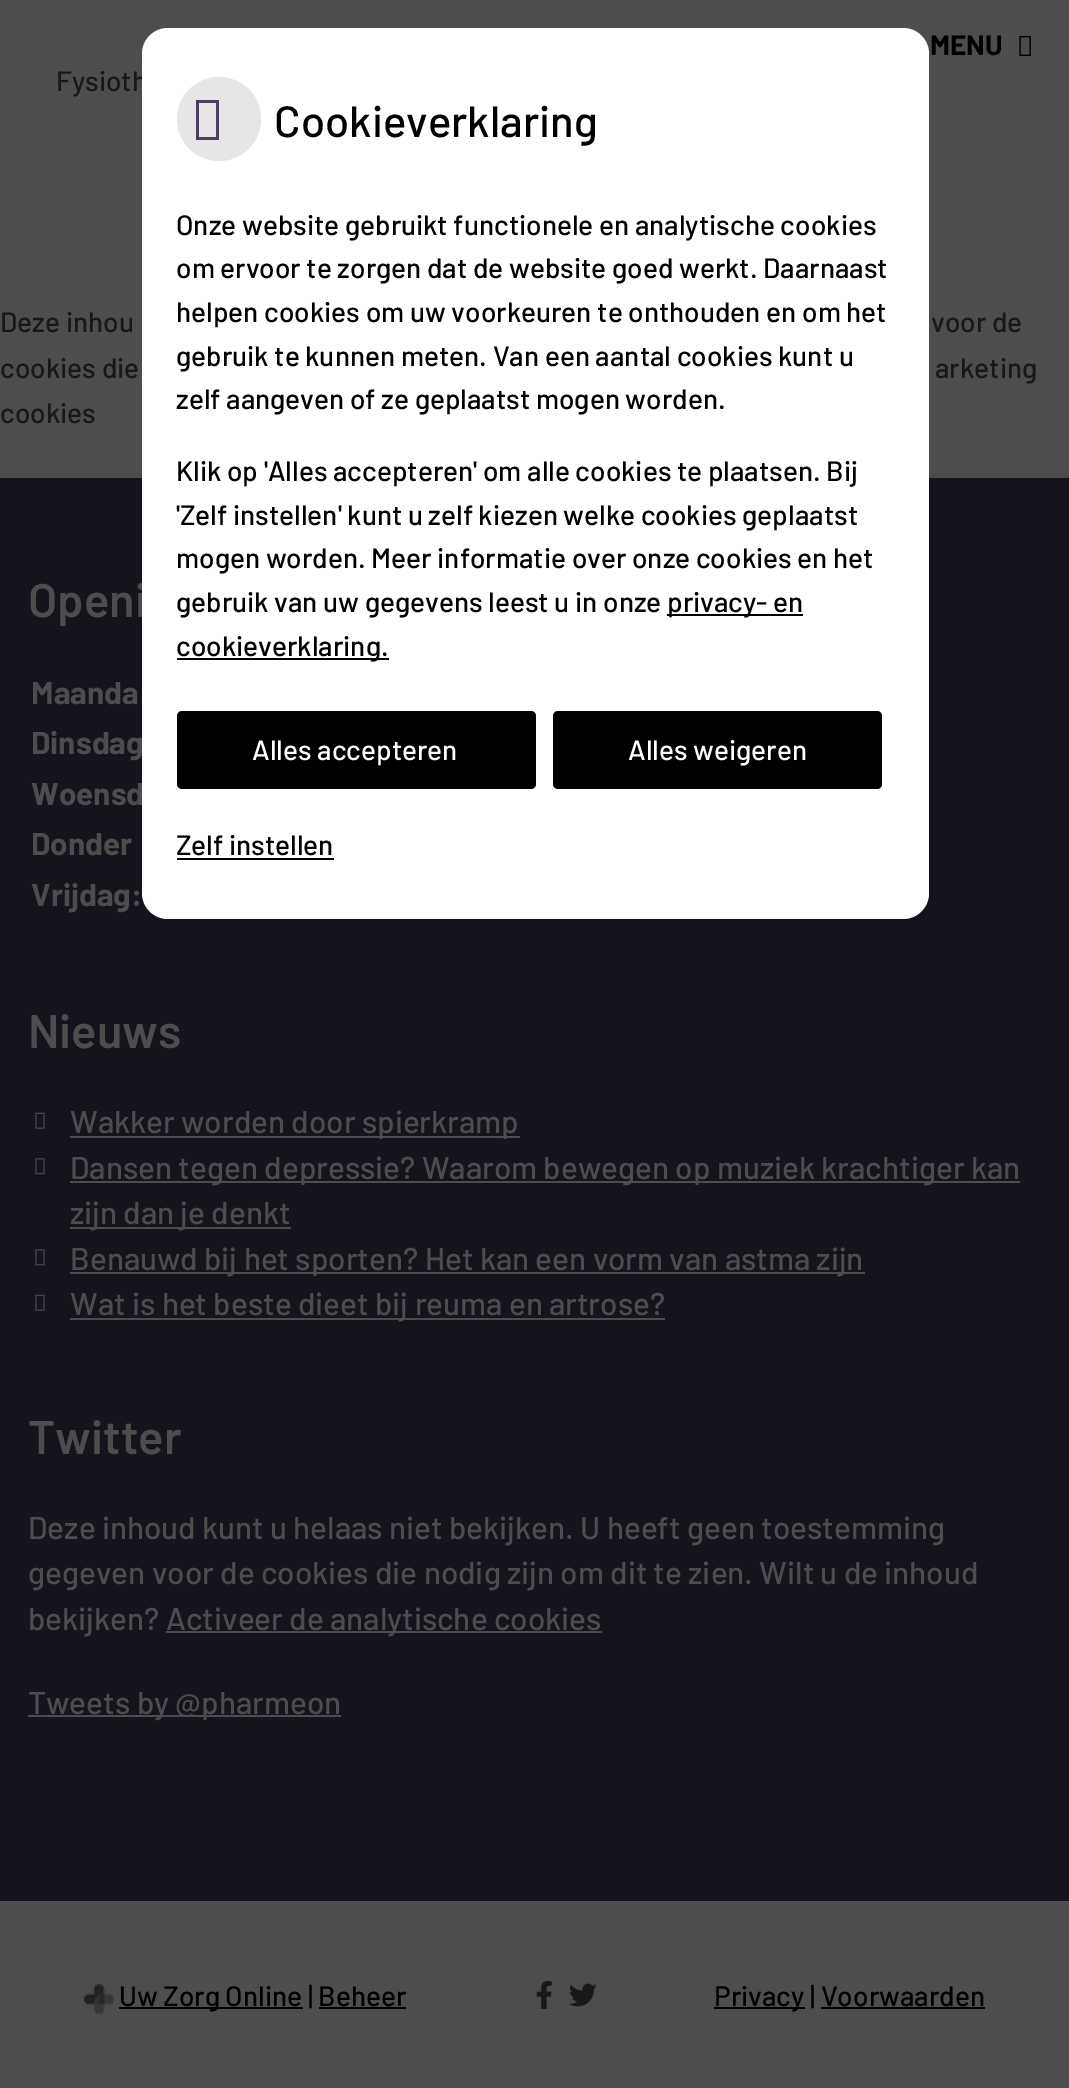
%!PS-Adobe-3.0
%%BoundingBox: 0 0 1069 2088
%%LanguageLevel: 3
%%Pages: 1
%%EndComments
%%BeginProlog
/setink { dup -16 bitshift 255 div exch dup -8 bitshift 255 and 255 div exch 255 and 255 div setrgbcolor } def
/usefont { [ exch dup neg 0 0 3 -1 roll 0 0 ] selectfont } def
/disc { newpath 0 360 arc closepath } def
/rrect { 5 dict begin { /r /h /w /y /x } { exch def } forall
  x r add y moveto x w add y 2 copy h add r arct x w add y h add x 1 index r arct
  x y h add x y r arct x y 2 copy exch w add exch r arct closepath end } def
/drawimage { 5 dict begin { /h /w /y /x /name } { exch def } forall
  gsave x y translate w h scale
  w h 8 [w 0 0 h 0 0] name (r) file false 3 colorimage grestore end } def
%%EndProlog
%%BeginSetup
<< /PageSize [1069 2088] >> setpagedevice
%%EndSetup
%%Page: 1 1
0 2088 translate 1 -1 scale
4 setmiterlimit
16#4D4D4D setink
0 0 1069 2088 rectfill
/Barlow-Bold 28 usefont
16#000000 setink
930 55 moveto (MENU) show
(img1.raw) 1019 36 12 20 drawimage
/Barlow-Medium 28 usefont
16#181818 setink
56 91 moveto (Fysioth) show
16#17131D setink
0 478 1069 1423 rectfill
/Barlow-SemiBold 47 usefont
16#4D4D4D setink
28 617 moveto (Openi) show
/Barlow-Bold 31.5 usefont
31 805 moveto (Woensd) show
16#FFFFFF setink
142 28 787 891 26 rrect fill
16#E6E6E6 setink
219 119 42 disc fill
16#4E3E60 setink
196 140 moveto 196 100 lineto 219 100 lineto 219 140 lineto closepath 199 137 moveto 216 137 lineto 216 103 lineto 199 103 lineto closepath fill
/Barlow-Medium 43.75 usefont
16#000000 setink
274 137 moveto (Cookieverklaring) show
/Barlow-Medium 28 usefont
[
    [(Onze website gebruikt functionele en analytische cookies) 176 235]
    [(om ervoor te zorgen dat de website goed werkt. Daarnaast) 176 278]
    [(helpen cookies om uw voorkeuren te onthouden en om het) 176 322]
    [(gebruik te kunnen meten. Van een aantal cookies kunt u) 176 366]
    [(zelf aangeven of ze geplaatst mogen worden.) 176 409]
    [(Klik op 'Alles accepteren' om alle cookies te plaatsen. Bij) 176 481]
    [('Zelf instellen' kunt u zelf kiezen welke cookies geplaatst) 176 525]
    [(mogen worden. Meer informatie over onze cookies en het) 176 568]
    [(gebruik van uw gegevens leest u in onze) 176 612]
] { aload pop moveto show } forall
667 614 136 2 rectfill
667 612 moveto (privacy- en) show
177 658 212 2 rectfill
176 656 moveto (cookieverklaring.) show
177 711 359 78 5 rrect fill
16#FFFFFF setink
252 760 moveto (Alles accepteren) show
16#000000 setink
553 711 329 78 5 rrect fill
16#FFFFFF setink
628 760 moveto (Alles weigeren) show
16#000000 setink
176 855 moveto (Zelf instellen) show
177 858 157 2 rectfill
16#181818 setink
[
    [(Deze inhou) 0 332]
    [(voor de) 931 332]
    [(cookies die) 0 378]
    [(arketing) 935 378]
    [(cookies) 0 423]
] { aload pop moveto show } forall
/Barlow-Bold 31.5 usefont
16#4D4D4D setink
[
    [(Maanda) 31 704]
    [(Dinsdag) 31 754]
    [(Donder) 31 855]
    [(Vrijdag:) 31 906]
] { aload pop moveto show } forall
/Barlow-SemiBold 47 usefont
28 1048 moveto (Nieuws) show
(img2.raw) 35 1112 10 17 drawimage
70 1136 450 2 rectfill
/Barlow-Medium 31.5 usefont
70 1133 moveto (Wakker worden door spierkramp) show
(img3.raw) 35 1158 10 17 drawimage
70 1181 950 2 rectfill
70 1179 moveto (Dansen tegen depressie? Waarom bewegen op muziek krachtiger kan) show
70 1227 221 2 rectfill
70 1224 moveto (zijn dan je denkt) show
(img3.raw) 35 1249 10 17 drawimage
70 1272 795 2 rectfill
70 1270 moveto (Benauwd bij het sporten? Het kan een vorm van astma zijn) show
(img2.raw) 35 1294 10 17 drawimage
70 1318 595 2 rectfill
70 1315 moveto (Wat is het beste dieet bij reuma en artrose?) show
/Barlow-SemiBold 47 usefont
28 1454 moveto (Twitter) show
/Barlow-Medium 31.5 usefont
[
    [(Deze inhoud kunt u helaas niet bekijken. U heeft geen toestemming) 28 1539]
    [(gegeven voor de cookies die nodig zijn om dit te zien. Wilt u de inhoud) 28 1584]
    [(bekijken?) 28 1630]
] { aload pop moveto show } forall
166 1631 436 2 rectfill
166 1630 moveto (Activeer de analytische cookies) show
28 1715 313 2 rectfill
28 1714 moveto (Tweets by @pharmeon) show
(img4.raw) 84 1984 30 30 drawimage
16#000000 setink
119 2007 184 2 rectfill
/Barlow-Medium 28 usefont
119 2006 moveto (Uw Zorg Online | Beheer) show
319 2007 87 2 rectfill
(img5.raw) 536 1981 16 28 drawimage
(img6.raw) 569 1983 28 24 drawimage
714 2007 91 2 rectfill
714 2006 moveto (Privacy | Voorwaarden) show
821 2007 164 2 rectfill
showpage
%%EOF
